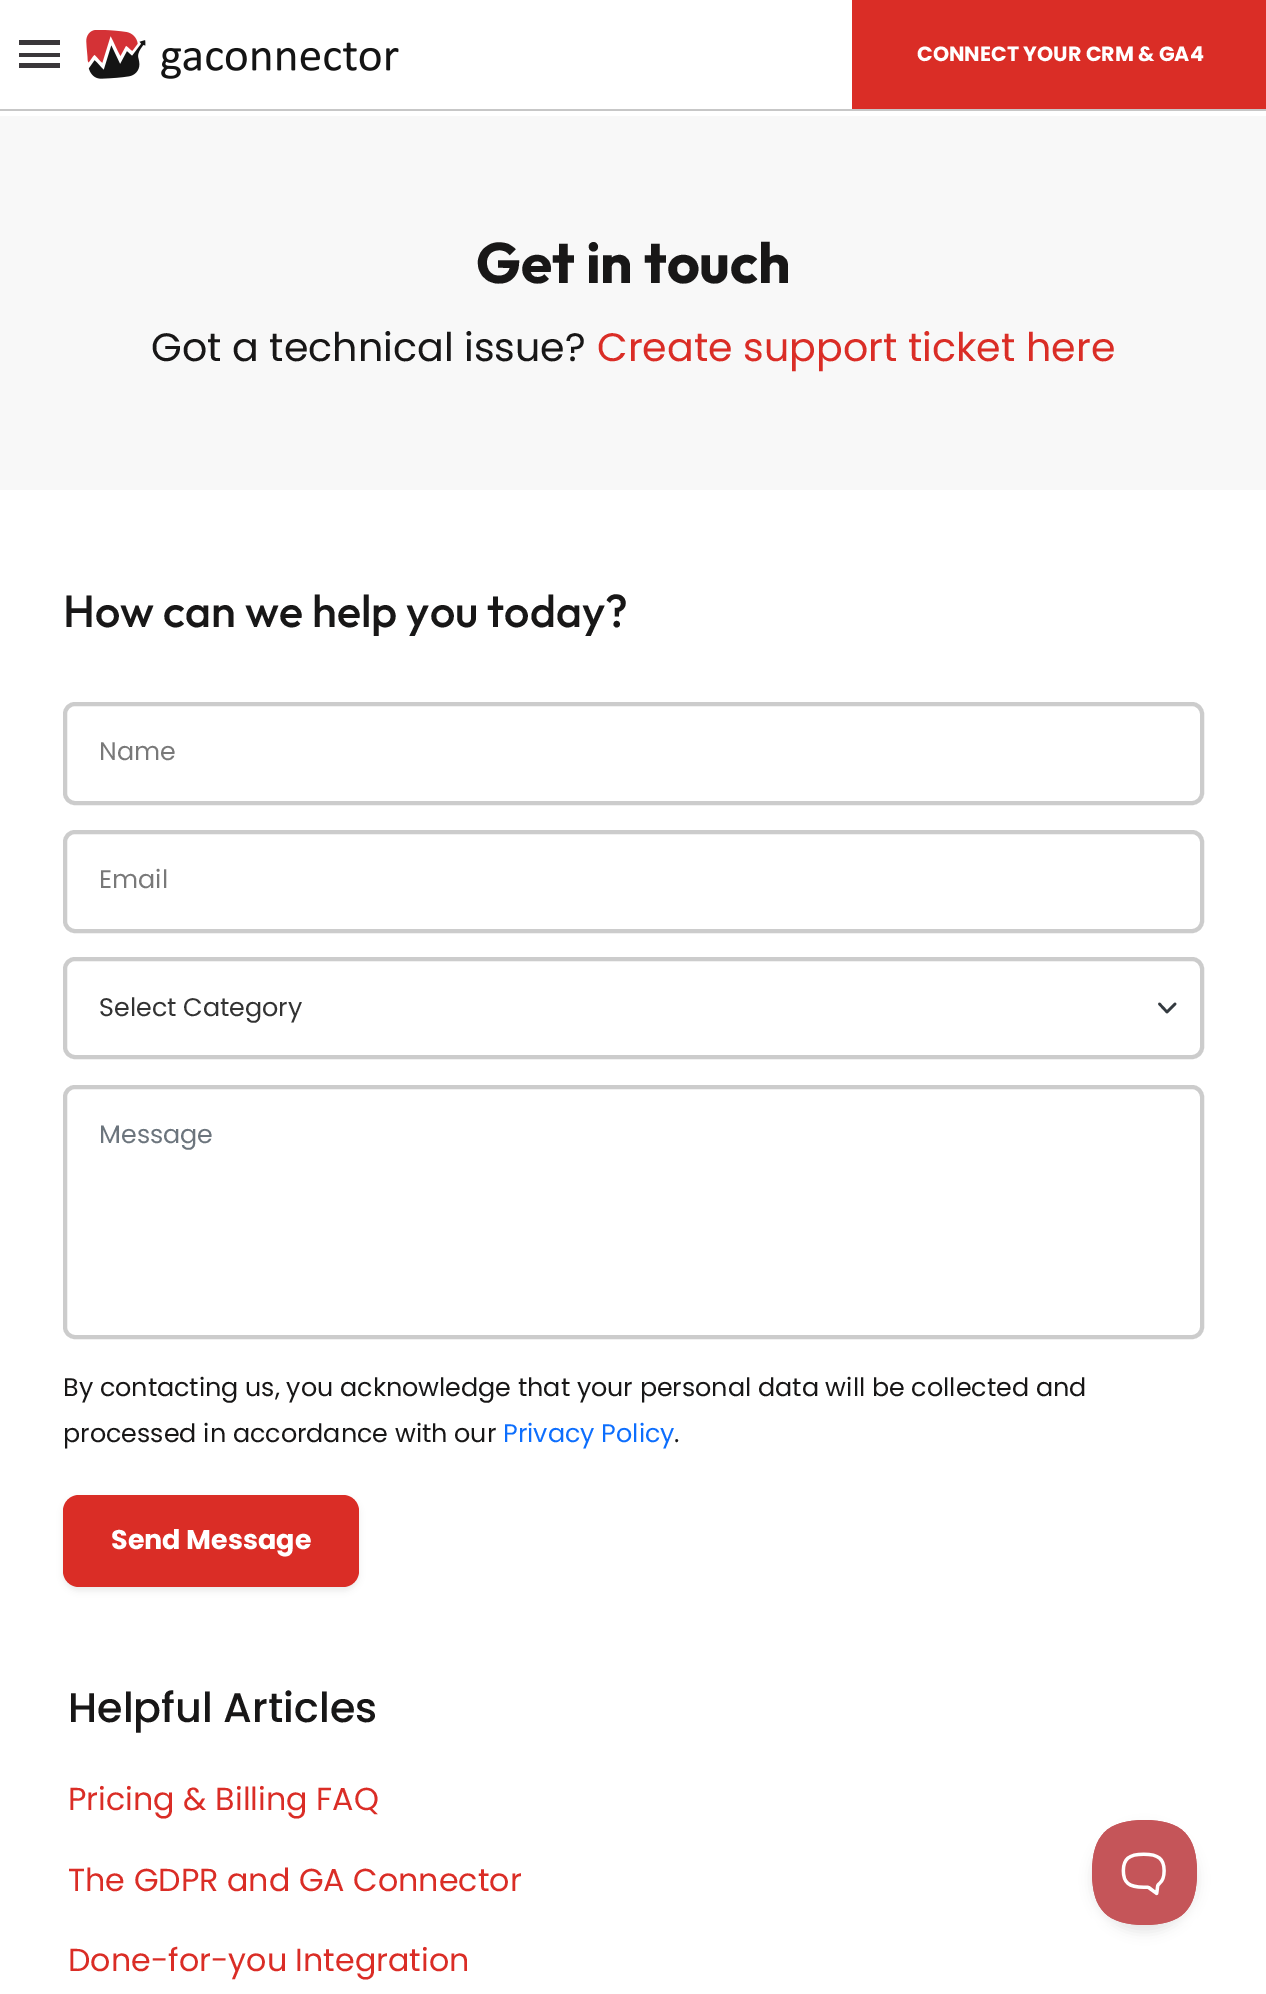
%!PS-Adobe-3.0
%%BoundingBox: 0 0 1266 1994
%%LanguageLevel: 3
%%Pages: 1
%%EndComments
%%BeginProlog
/setink { dup -16 bitshift 255 div exch dup -8 bitshift 255 and 255 div exch 255 and 255 div setrgbcolor } def
/usefont { [ exch dup neg 0 0 3 -1 roll 0 0 ] selectfont } def
/setalpha { dup .setfillconstantalpha .setstrokeconstantalpha } def
/rrect { 5 dict begin { /r /h /w /y /x } { exch def } forall
  x r add y moveto x w add y 2 copy h add r arct x w add y h add x 1 index r arct
  x y h add x y r arct x y 2 copy exch w add exch r arct closepath end } def
/softshadow { 12 dict begin { /a /b /q /h /w /y /x } { exch def } forall gsave /was 0 def
  9 -2 -9 { dup b mul 4 div /e exch def 1 sub .425 mul 2.718 exch exp 1 add a .99 .min exch div /now exch def
    1 1 now sub 1 was sub div sub setalpha /was now def
    w h .min e 2 mul add 0 gt { x e sub y e sub w e 2 mul add h e 2 mul add
      q e add b .6 mul add w h .min 2 div e add .min 0 .max rrect fill } if } for grestore end } def
/drawimage { 5 dict begin { /h /w /y /x /name } { exch def } forall
  gsave x y translate w h scale
  w h 8 [w 0 0 h 0 0] name (r) file false 3 colorimage grestore end } def
%%EndProlog
%%BeginSetup
<< /PageSize [1266 1994] /PageUsesTransparency true >> setpagedevice
%%EndSetup
%%Page: 1 1
0 .pushpdf14devicefilter
0 1994 translate 1 -1 scale
4 setmiterlimit
16#FFFFFF setink
0 0 1266 1994 rectfill
[
    [0 109 1266 2 16#C7C7C7]
    [19 40 41 5 16#3A373A]
    [19 53 41 4 16#3A373A]
    [19 63 41 5 16#3A373A]
] { aload pop setink rectfill } forall
(img1.raw) 86 30 313 49 drawimage
16#DA2D26 setink
852 0 414 109 rectfill
/Poppins-Bold 20.6 usefont
16#FFFFFF setink
917 61 moveto (CONNECT YOUR CRM & GA4) show
16#F8F8F8 setink
0 116 1266 374 rectfill
/Outfit-Bold 57 usefont
16#181717 setink
476 283 moveto (Get in touch) show
/Poppins-Regular 39.6 usefont
151 361 moveto (Got a technical issue?) show
16#DA2D26 setink
597 361 moveto (Create support ticket here) show
/Outfit-Medium 45 usefont
16#181717 setink
63 627 moveto (How can we help you today?) show
16#CCCCCC setink
4 setlinewidth
65 704 1137 99 10 rrect stroke
/Poppins-Regular 25.4 usefont
16#797979 setink
99 760 moveto (Name) show
16#CCCCCC setink
65 832 1137 99 10 rrect stroke
16#797979 setink
99 888 moveto (Email) show
16#343A40 setink
2.6 setlinewidth
1 setlinecap
1 setlinejoin
1159.5 1004 moveto 1167 1012 lineto 1175 1004 lineto stroke
16#CCCCCC setink
4 setlinewidth
0 setlinecap
0 setlinejoin
65 959 1137 98 10 rrect stroke
16#333333 setink
99 1016 moveto (Select Category) show
16#CCCCCC setink
65 1087 1137 250 10 rrect stroke
16#6C757D setink
99 1143 moveto (Message) show
16#181717 setink
63 1396 moveto (By contacting us, you acknowledge that your personal data will be collected and) show
63 1442 moveto (processed in accordance with our) show
16#0D6EFD setink
503 1442 moveto (Privacy Policy) show
16#181717 setink
674 1442 moveto (.) show
16#000000 setink
63 1498 296 93 16 3 0.07 softshadow
16#DA2D26 setink
63 1495 296 92 16 rrect fill
/Poppins-Bold 27 usefont
16#FFFFFF setink
111 1549 moveto (Send Message) show
/Poppins-Medium 41.25 usefont
16#181717 setink
68 1722 moveto (Helpful Articles) show
/Poppins-Regular 31.75 usefont
16#DA2D26 setink
[
    [(Pricing & Billing FAQ) 68 1810]
    [(The GDPR and GA Connector) 68 1891]
    [(Done-for-you Integration) 68 1971]
] { aload pop moveto show } forall
16#000000 setink
1092 1827 105 105 52.5 6 0.1 softshadow
(img2.raw) 1092 1820 105 105 drawimage
.poppdf14devicefilter showpage
%%EOF
